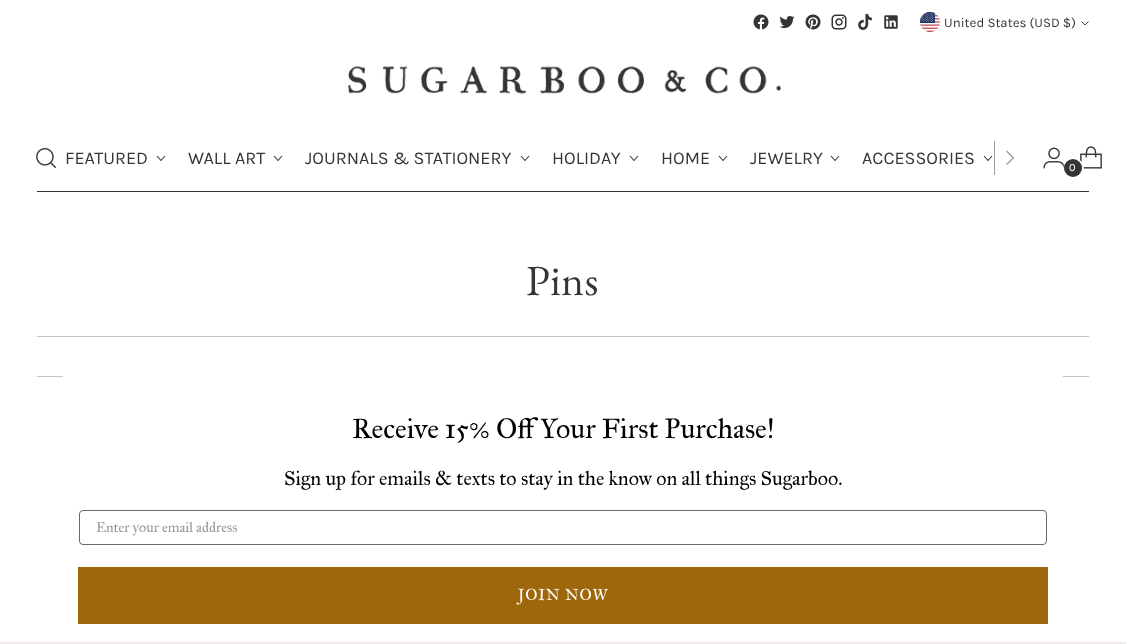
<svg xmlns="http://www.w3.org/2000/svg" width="1126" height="644">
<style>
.a{font:13.25px Karla;fill:#353534}
.b{font:18px Karla;fill:#353534}
.c{font:11px Karla;fill:#fff}
.d{font:43px EB Garamond;letter-spacing:0.5px;fill:#353534}
.e{font:28px IM FELL Great Primer;fill:#000}
.f{font:20px IM FELL Great Primer;fill:#000}
.g{font:14px IM FELL Great Primer;fill:#949596}
.h{font:16px IM FELL Great Primer SC;letter-spacing:1px;fill:#fff}
</style>
<rect width="100%" height="100%" fill="#fff"/>
<path fill="#353534" d="M37 191h1052v1H37z"/>
<image href="1.png" x="753" y="14" width="16" height="16"/>
<image href="2.png" x="779" y="15" width="16" height="14"/>
<image href="3.png" x="805" y="14" width="16" height="16"/>
<image href="4.png" x="831" y="14" width="16" height="16"/>
<image href="5.png" x="858" y="14" width="14" height="16"/>
<image href="6.png" x="884" y="15" width="14" height="14"/>
<image href="7.png" x="920" y="12" width="20" height="20"/>
<path fill="none" stroke="#353534" stroke-width="0.9" d="M1081.5 21.5l3.5 3.5l3.5-3.5"/>
<image href="8.png" x="348" y="66" width="433" height="28"/>
<image href="9.png" x="36" y="148" width="21" height="21"/>
<path fill="none" stroke="#353534" stroke-width="1.1" d="M157 156l4 4.5l4-4.5"/>
<path fill="none" stroke="#353534" stroke-width="1.1" d="M274 156l4 4.5l4-4.5"/>
<path fill="none" stroke="#353534" stroke-width="1.1" d="M521 156l4 4.5l4-4.5"/>
<path fill="none" stroke="#353534" stroke-width="1.1" d="M630 156l4 4.5l4-4.5"/>
<path fill="none" stroke="#353534" stroke-width="1.1" d="M719 156l4 4.5l4-4.5"/>
<path fill="none" stroke="#353534" stroke-width="1.1" d="M831 156l4 4.5l4-4.5"/>
<path fill="none" stroke="#353534" stroke-width="1.1" d="M984 156l4 4.5l4-4.5"/>
<path fill="#9a9a9a" d="M994 141h1v34H994z"/>
<path fill="none" stroke="#9a9a9a" stroke-width="1.3" d="M1006.5 164.5l7-6.5l-7-7"/>
<image href="10.png" x="1043" y="147" width="21" height="22"/>
<image href="11.png" x="1080" y="146" width="22" height="23"/>
<circle fill="none" stroke="#fff" stroke-width="2" cx="1073.5" cy="168.5" r="9.5"/>
<circle fill="#353534" cx="1073" cy="168" r="9"/>
<path fill="#c9c5be" d="M37 336h1052v1H37z"/>
<path fill="#c9c5be" d="M37 376h1052v1H37z"/>
<path fill="#fff" d="M63 376h1000v1H63z"/>
<rect fill="none" stroke="#606a72" x="79.5" y="510.5" width="967" height="34" rx="3.5"/>
<path fill="#9f670c" d="M78 567h970v57H78z"/>
<path fill="#efeae9" d="M0 642h1126v2H0z"/>
<text class="a" x="944" y="27">United States (USD $)</text>
<text class="b" x="65" y="164">FEATURED</text>
<text class="b" x="188" y="164">WALL ART</text>
<text class="b" x="305" y="164">JOURNALS &amp; STATIONERY</text>
<text class="b" x="552" y="164">HOLIDAY</text>
<text class="b" x="661" y="164">HOME</text>
<text class="b" x="750" y="164">JEWELRY</text>
<text class="b" x="862" y="164">ACCESSORIES</text>
<text class="c" x="1069" y="171">0</text>
<text class="d" x="526" y="295">Pins</text>
<text class="e" x="352" y="438">Receive 15% Off Your First Purchase!</text>
<text class="f" x="284" y="485">Sign up for emails &amp; texts to stay in the know on all things Sugarboo.</text>
<text class="g" x="96" y="532">Enter your email address</text>
<text class="h" x="518" y="600">JOIN NOW</text>
</svg>
